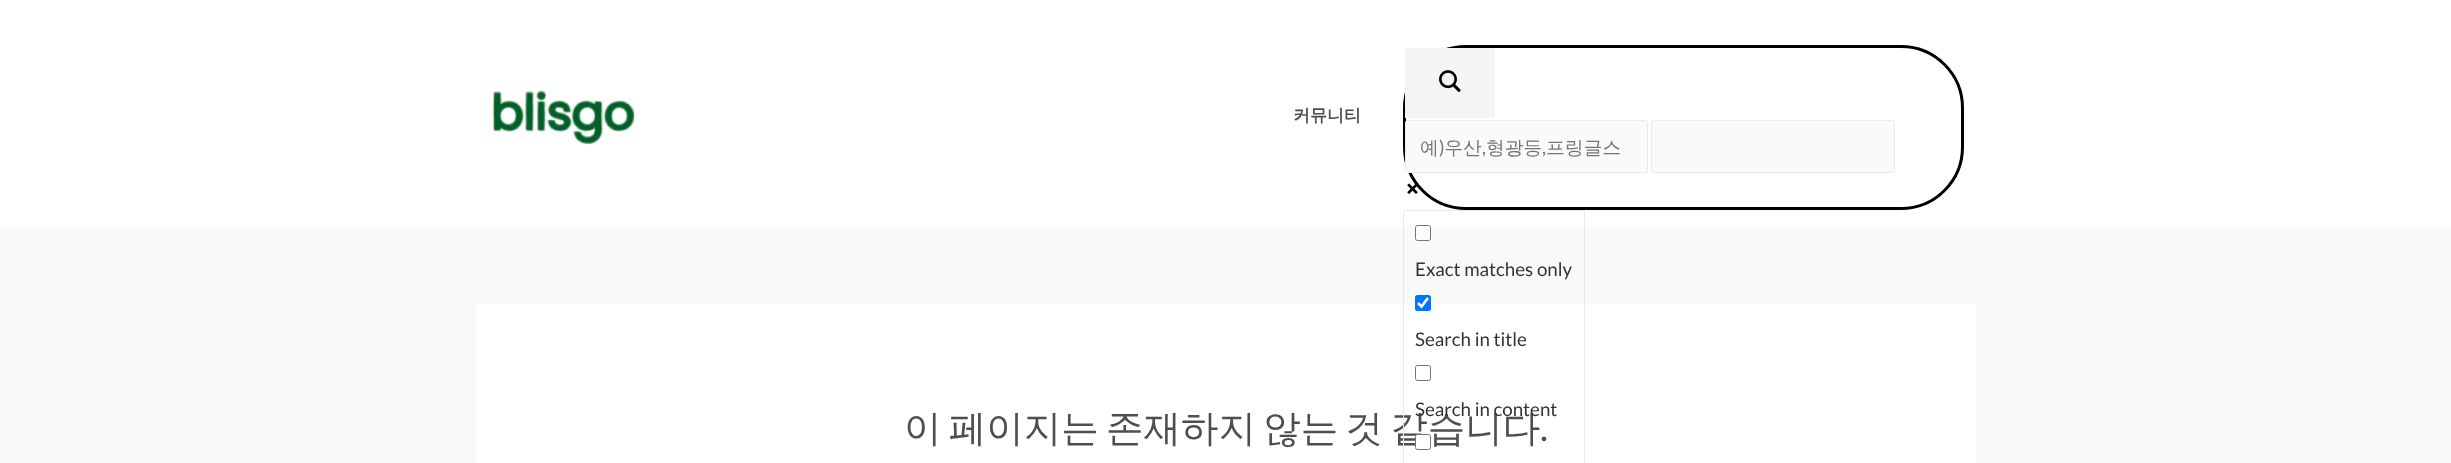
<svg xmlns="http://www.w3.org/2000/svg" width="2451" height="463">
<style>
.a{font:bold 17px WenQuanYi Zen Hei;fill:#4e4e4e}
.b{font:500 18.75px WenQuanYi Zen Hei;fill:#757575}
.c{font:18.75px Lato;fill:#757575}
.d{font:500 37.5px WenQuanYi Zen Hei;fill:#4e4e4e}
.e{font:18.75px Lato;fill:#333}
.f{font:37.5px Lato;fill:#4e4e4e}
</style>
<rect width="100%" height="100%" fill="#f9f9f9"/>
<path fill="#fff" d="M0 0h2451v229H0z"/>
<image href="1.png" x="492" y="90" width="143" height="54"/>
<rect fill="none" stroke="#000" stroke-width="3" x="1404.5" y="46.5" width="558" height="162" rx="61.5"/>
<path fill="#f4f4f4" d="M1405 48h90v70H1405z"/>
<image href="2.png" x="1439" y="70" width="22" height="23"/>
<rect fill="#fafafa" stroke="#eaeaea" x="1405.5" y="120.5" width="242" height="52" rx="2"/>
<rect fill="#fafafa" stroke="#eaeaea" x="1651.5" y="120.5" width="243" height="52" rx="2"/>
<image href="3.png" x="1407" y="183" width="11" height="11"/>
<path fill="#fff" d="M476 304h1500v159H476z"/>
<text class="a" x="1293" y="121">커뮤니티</text>
<text class="b" x="1420" y="154">예 우산</text>
<text class="c" x="1439" y="154">)</text>
<text class="c" x="1482" y="154">,</text>
<text class="b" x="1486" y="154">형광등</text>
<text class="c" x="1542" y="154">,</text>
<text class="b" x="1546" y="154">프링글스</text>
<text class="d" x="904" y="441" word-spacing="-4">이 페이지는 존재하지 않는 것 같습니다</text>
<path fill="none" stroke="#eaeaea" d="M1403.5 210.5h181v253H1403.5z"/>
<rect fill="#fff" stroke="#767676" x="1415.5" y="434.5" width="15" height="15" rx="2"/>
<text class="e" x="1415" y="416">Search in content</text>
<rect fill="none" stroke="#767676" x="1415.5" y="365.5" width="15" height="15" rx="2"/>
<text class="e" x="1415" y="346">Search in title</text>
<rect fill="#0075ff" x="1415" y="295" width="16" height="16" rx="2.5"/>
<path fill="none" stroke="#fff" stroke-width="2.6" d="M1418 303l3.5 3.5l6.5-8.5"/>
<text class="e" x="1415" y="276">Exact matches only</text>
<rect fill="#fff" stroke="#767676" x="1415.5" y="225.5" width="15" height="15" rx="2"/>
<text class="f" x="1540" y="441">.</text>
</svg>
